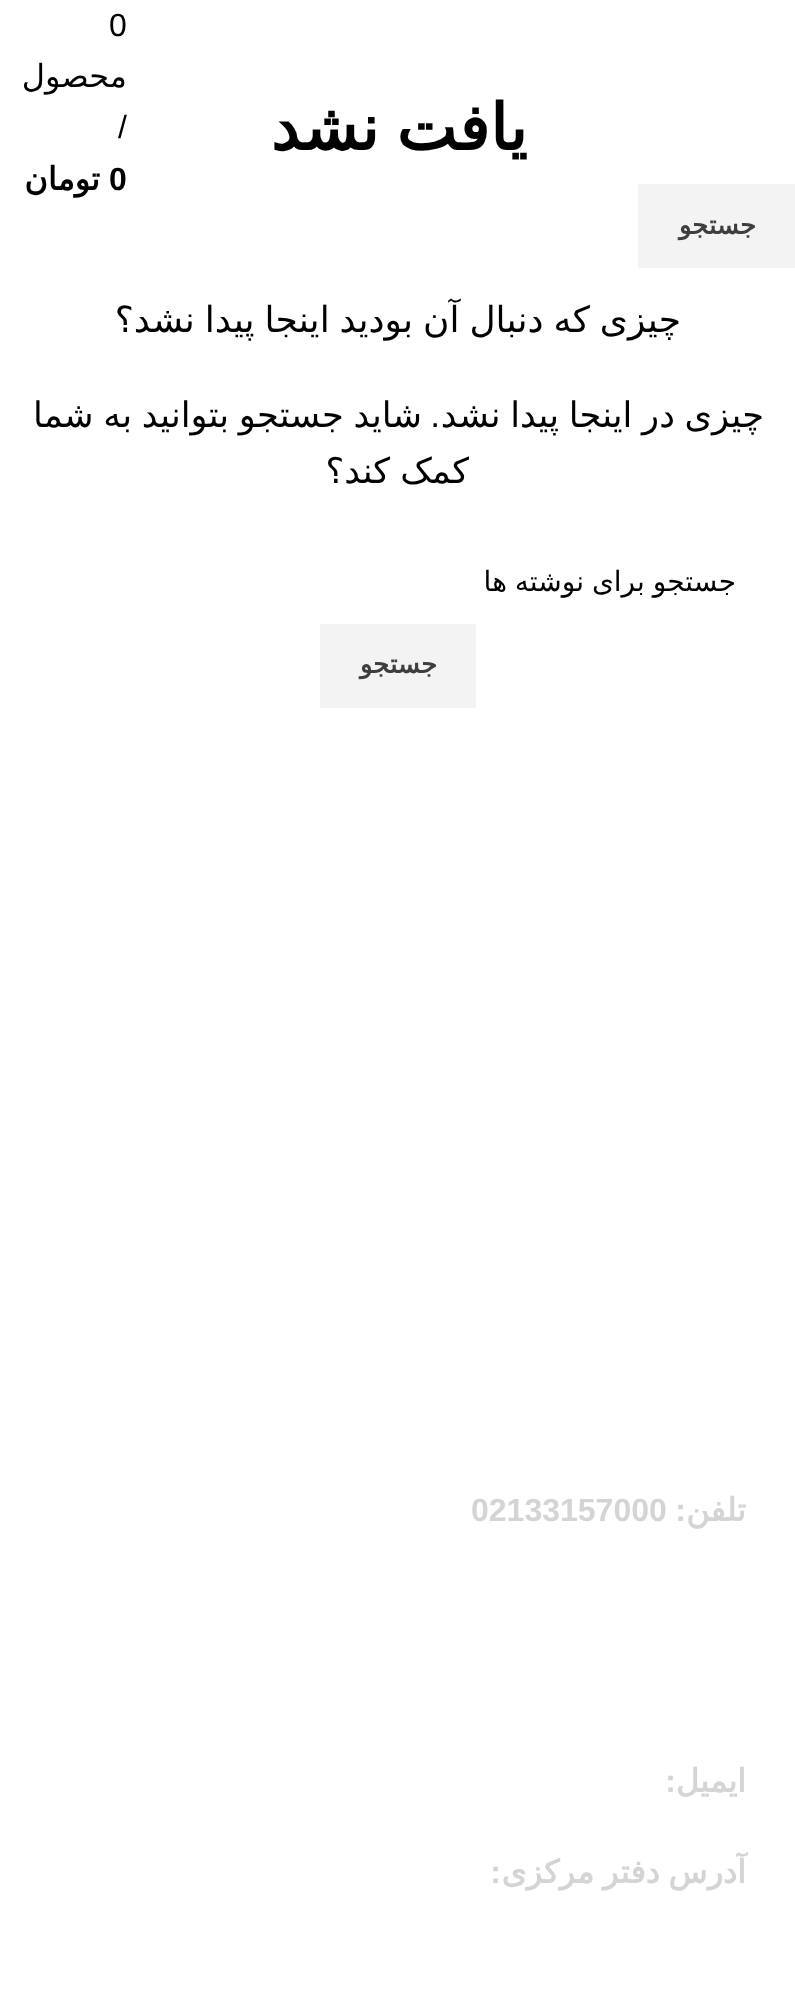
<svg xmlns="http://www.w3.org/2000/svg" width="795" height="1994">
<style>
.a{font:32px Liberation Sans;fill:#000}
.b{font:32px DejaVu Sans;direction:rtl;fill:#000}
.c{font:bold 32px Liberation Sans;fill:#000}
.d{font:bold 32px DejaVu Sans;direction:rtl;fill:#000}
.e{font:bold 64px DejaVu Sans;direction:rtl;fill:#000}
.f{font:36px DejaVu Sans;direction:rtl;fill:#000}
.g{font:35.25px DejaVu Sans;direction:rtl;fill:#000}
.h{font:35.25px Liberation Sans;direction:rtl;fill:#000}
.i{font:28px DejaVu Sans;direction:rtl;fill:#000}
.j{font:bold 26px DejaVu Sans;direction:rtl;fill:#3e3e3e}
.k{font:bold 32px DejaVu Sans;direction:rtl;fill:#d4d4d4}
.l{font:bold 32px Liberation Sans;direction:rtl;fill:#d4d4d4}
.m{font:bold 32px Liberation Sans;fill:#d4d4d4}
</style>
<rect width="100%" height="100%" fill="#fff"/>
<path fill="#f3f3f3" d="M320 624h156v84H320z"/>
<path fill="#f3f3f3" d="M638 184h157v84H638z"/>
<text class="a" x="109" y="36">0</text>
<text class="b" x="127" y="87">محصول</text>
<text class="a" x="118" y="138">/</text>
<text class="c" x="109" y="190">0</text>
<text class="d" x="100" y="190">تومان</text>
<text class="e" x="527" y="150" word-spacing="-3">یافت نشد</text>
<text class="f" x="681" y="332" word-spacing="-1.5">چیزی که دنبال آن بودید اینجا پیدا نشد؟</text>
<text class="g" x="764" y="427" word-spacing="-1.5">چیزی در اینجا پیدا نشد</text>
<text class="h" x="440" y="427">.</text>
<text class="g" x="422" y="427" word-spacing="-1.5">شاید جستجو بتوانید به شما</text>
<text class="g" x="469" y="483" word-spacing="-1">کمک کند؟</text>
<text class="i" x="736" y="591" word-spacing="-1">جستجو برای نوشته ها</text>
<text class="j" x="437" y="673">جستجو</text>
<text class="k" x="746" y="1521">تلفن</text>
<text class="l" x="686" y="1521">:</text>
<text class="m" x="471" y="1521">02133157000</text>
<text class="k" x="746" y="1792">ایمیل</text>
<text class="l" x="676" y="1792">:</text>
<text class="k" x="746" y="1883" word-spacing="-1.5">آدرس دفتر مرکزی</text>
<text class="l" x="501" y="1883">:</text>
<text class="j" x="756" y="234">جستجو</text>
</svg>
